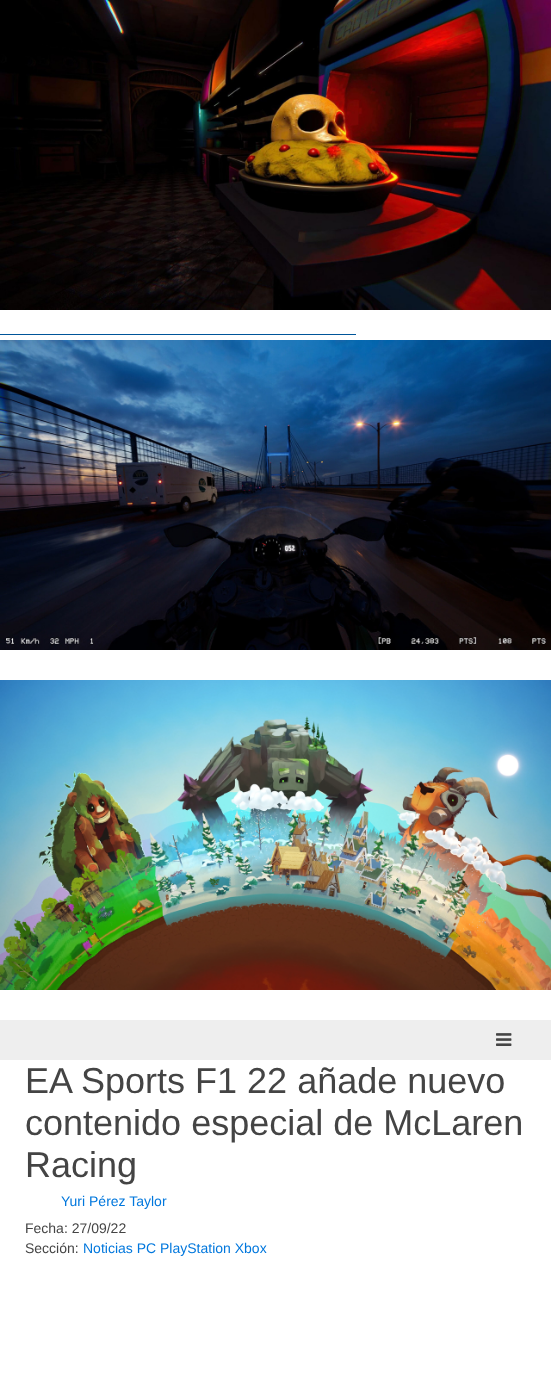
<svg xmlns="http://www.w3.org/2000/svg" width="551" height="1388">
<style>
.a{font:36px Liberation Sans;fill:#444}
.b{font:14px Liberation Sans;fill:#07d}
.c{font:14px Liberation Sans;fill:#444}
</style>
<rect width="100%" height="100%" fill="#fff"/>
<image href="1.png" x="0" y="0" width="551" height="310"/>
<path fill="#059" d="M0 334h356v1H0z"/>
<image href="2.png" x="0" y="340" width="551" height="310"/>
<image href="3.png" x="0" y="680" width="551" height="310"/>
<path fill="#eee" d="M0 1020h551v40H0z"/>
<image href="4.png" x="496" y="1033" width="16" height="13"/>
<text class="a" x="25" y="1093">EA Sports F1 22 añade nuevo</text>
<text class="a" x="25" y="1135">contenido especial de McLaren</text>
<text class="a" x="25" y="1177">Racing</text>
<text class="b" x="61" y="1206">Yuri Pérez Taylor</text>
<text class="c" x="25" y="1233">Fecha: 27/09/22</text>
<text class="c" x="25" y="1253">Sección:</text>
<text class="b" x="83" y="1253">Noticias PC PlayStation Xbox</text>
</svg>
